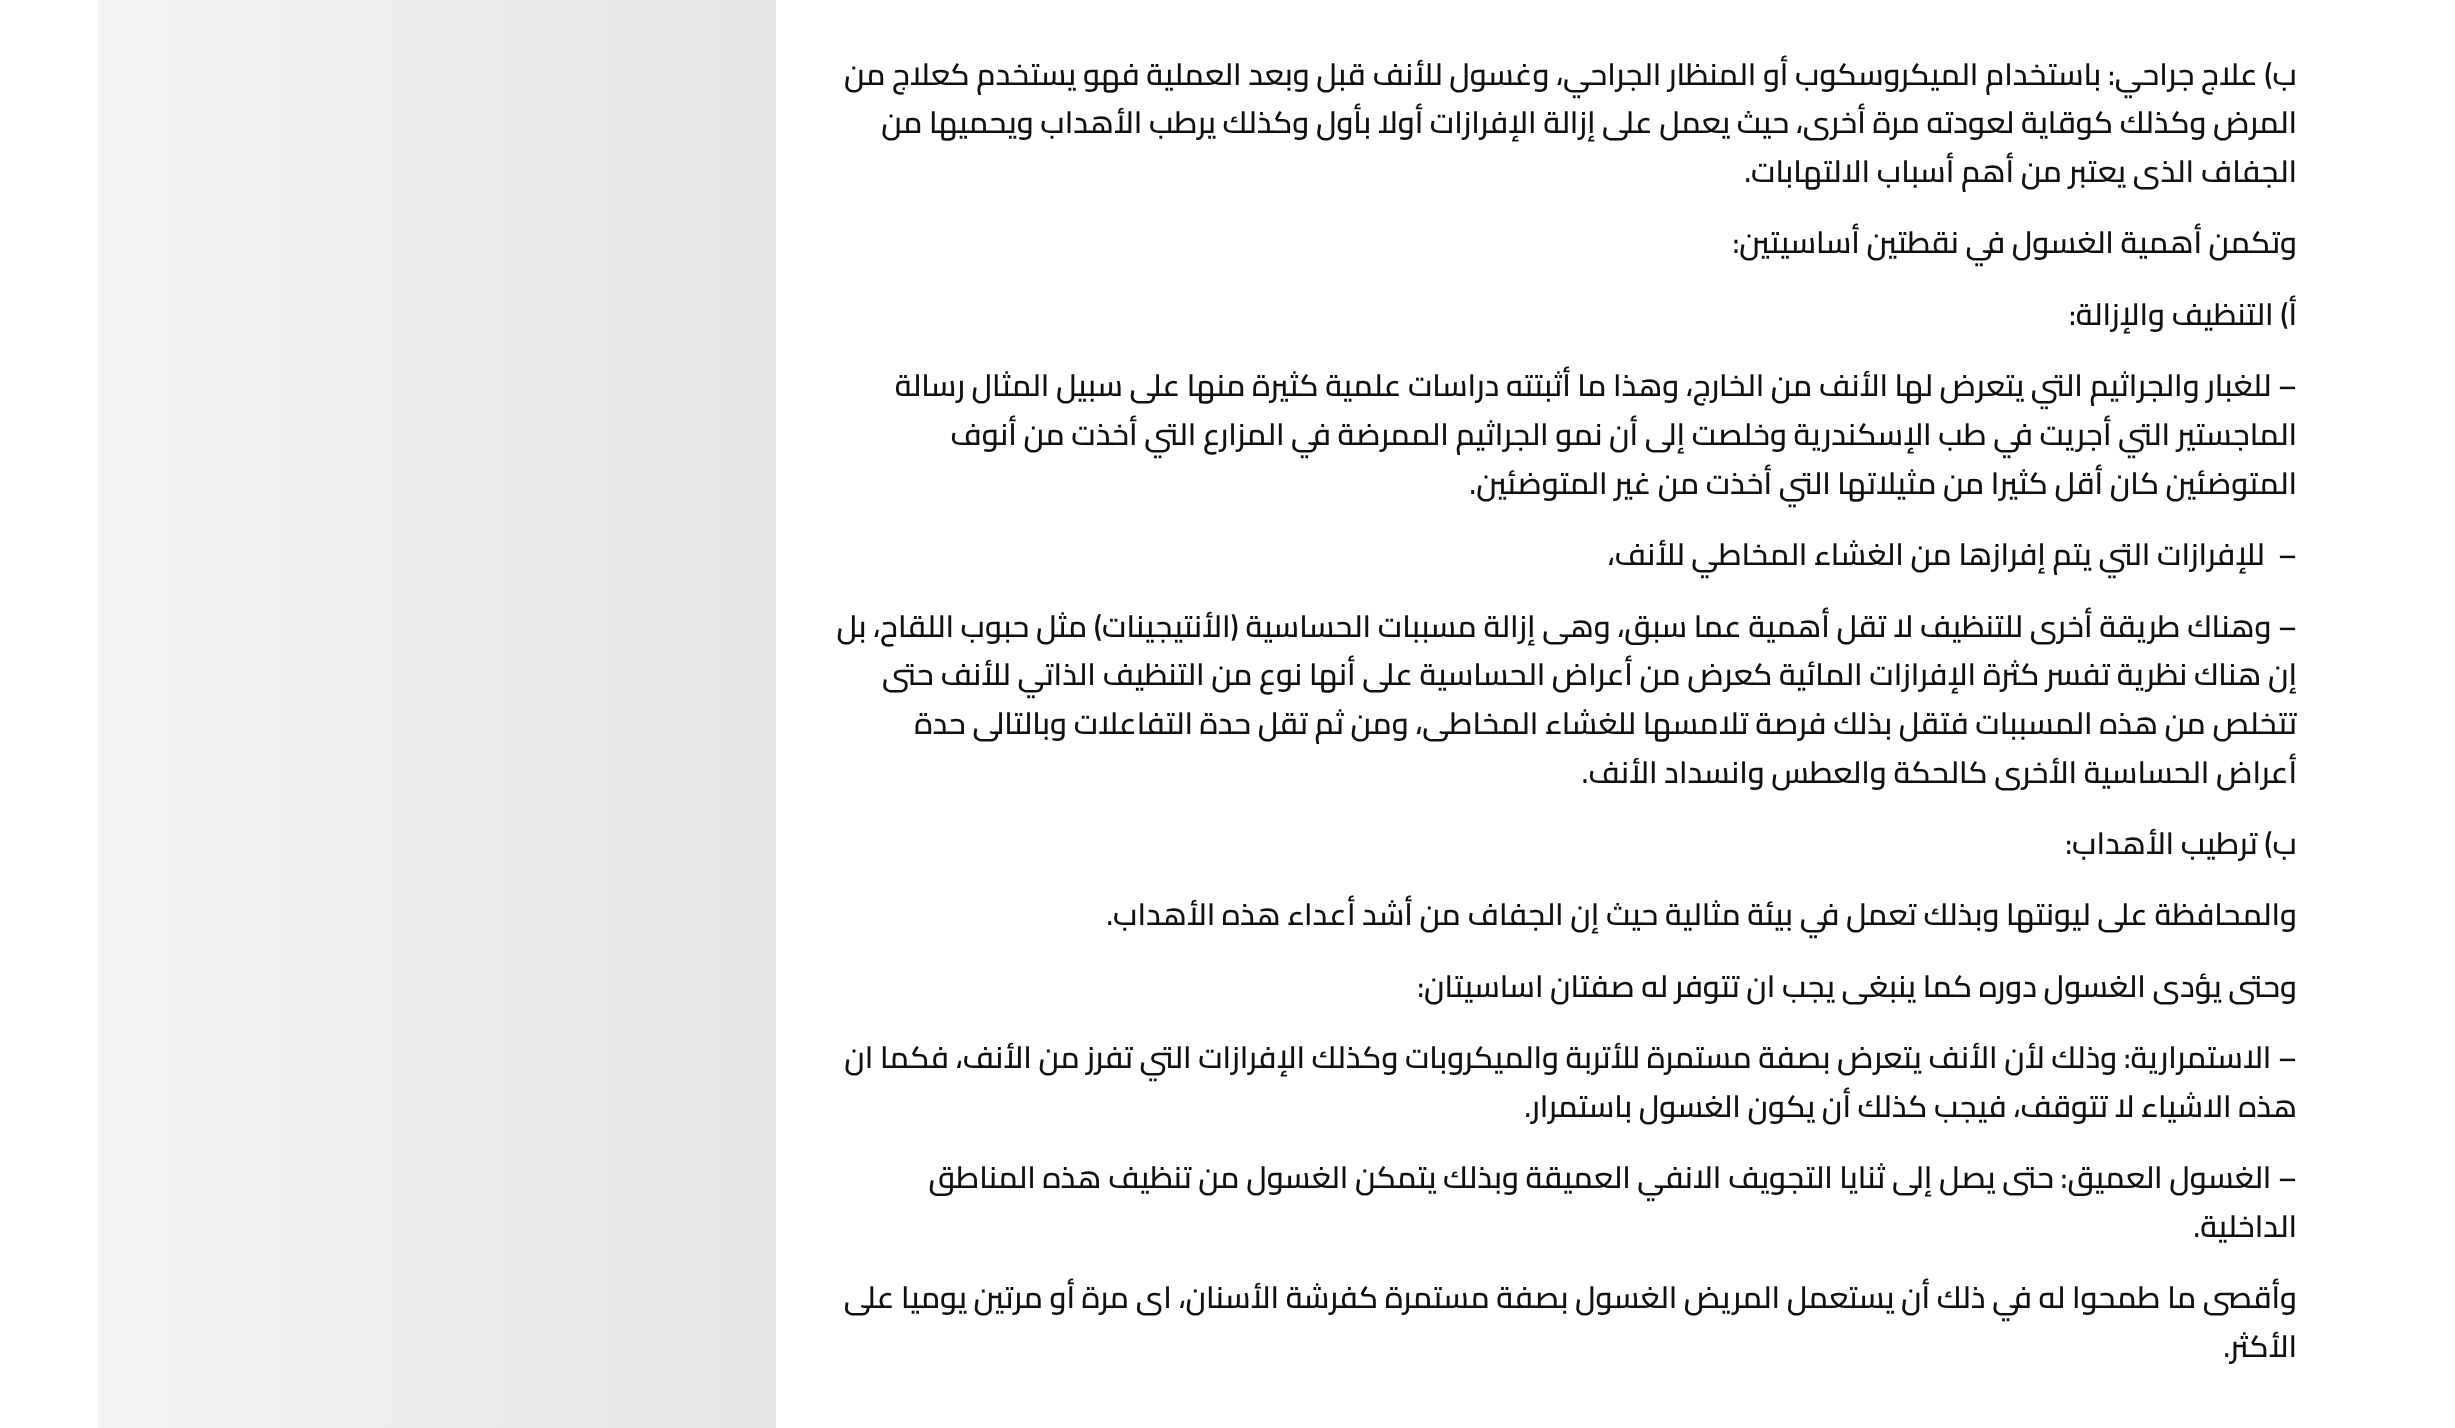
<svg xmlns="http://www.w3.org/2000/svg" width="2455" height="1428">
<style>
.a{font:600 30.4px Cairo;direction:rtl;fill:#111}
</style>
<defs>
<linearGradient id="g1" gradientUnits="userSpaceOnUse" x1="98" y1="-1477" x2="776" y2="-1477"><stop offset="0" stop-color="#f3f3f3"/><stop offset="1" stop-color="#e6e6e6"/></linearGradient>
</defs>
<rect width="100%" height="100%" fill="#fff"/>
<path fill="url(#g1)" d="M98 0h678v1428H98z"/>
<text class="a" x="2297" y="85">ب) علاج جراحي: باستخدام الميكروسكوب أو المنظار الجراحي، وغسول للأنف قبل وبعد العملية فهو يستخدم كعلاج من</text>
<text class="a" x="2297" y="133">المرض وكذلك كوقاية لعودته مرة أخرى، حيث يعمل على إزالة الإفرازات أولا بأول وكذلك يرطب الأهداب ويحميها من</text>
<text class="a" x="2297" y="182">الجفاف الذى يعتبر من أهم أسباب الالتهابات.</text>
<text class="a" x="2297" y="253">وتكمن أهمية الغسول في نقطتين أساسيتين:</text>
<text class="a" x="2297" y="325">أ) التنظيف والإزالة:</text>
<text class="a" x="2297" y="396">– للغبار والجراثيم التي يتعرض لها الأنف من الخارج، وهذا ما أثبتته دراسات علمية كثيرة منها على سبيل المثال رسالة</text>
<text class="a" x="2297" y="445">الماجستير التي أجريت في طب الإسكندرية وخلصت إلى أن نمو الجراثيم الممرضة في المزارع التي أخذت من أنوف</text>
<text class="a" x="2297" y="494">المتوضئين كان أقل كثيرا من مثيلاتها التي أخذت من غير المتوضئين.</text>
<text class="a" xml:space="preserve" x="2297" y="565">–  للإفرازات التي يتم إفرازها من الغشاء المخاطي للأنف،</text>
<text class="a" x="2297" y="637">– وهناك طريقة أخرى للتنظيف لا تقل أهمية عما سبق، وهى إزالة مسببات الحساسية (الأنتيجينات) مثل حبوب اللقاح، بل</text>
<text class="a" x="2297" y="685">إن هناك نظرية تفسر كثرة الإفرازات المائية كعرض من أعراض الحساسية على أنها نوع من التنظيف الذاتي للأنف حتى</text>
<text class="a" x="2297" y="734">تتخلص من هذه المسببات فتقل بذلك فرصة تلامسها للغشاء المخاطى، ومن ثم تقل حدة التفاعلات وبالتالى حدة</text>
<text class="a" x="2297" y="783">أعراض الحساسية الأخرى كالحكة والعطس وانسداد الأنف.</text>
<text class="a" x="2297" y="854">ب) ترطيب الأهداب:</text>
<text class="a" x="2297" y="925">والمحافظة على ليونتها وبذلك تعمل في بيئة مثالية حيث إن الجفاف من أشد أعداء هذه الأهداب.</text>
<text class="a" x="2297" y="997">وحتى يؤدى الغسول دوره كما ينبغى يجب ان تتوفر له صفتان اساسيتان:</text>
<text class="a" x="2297" y="1068">– الاستمرارية: وذلك لأن الأنف يتعرض بصفة مستمرة للأتربة والميكروبات وكذلك الإفرازات التي تفرز من الأنف، فكما ان</text>
<text class="a" x="2297" y="1117">هذه الاشياء لا تتوقف، فيجب كذلك أن يكون الغسول باستمرار.</text>
<text class="a" x="2297" y="1188">– الغسول العميق: حتى يصل إلى ثنايا التجويف الانفي العميقة وبذلك يتمكن الغسول من تنظيف هذه المناطق</text>
<text class="a" x="2297" y="1237">الداخلية.</text>
<text class="a" x="2297" y="1308">وأقصى ما طمحوا له في ذلك أن يستعمل المريض الغسول بصفة مستمرة كفرشة الأسنان، اى مرة أو مرتين يوميا على</text>
<text class="a" x="2297" y="1357">الأكثر.</text>
</svg>
